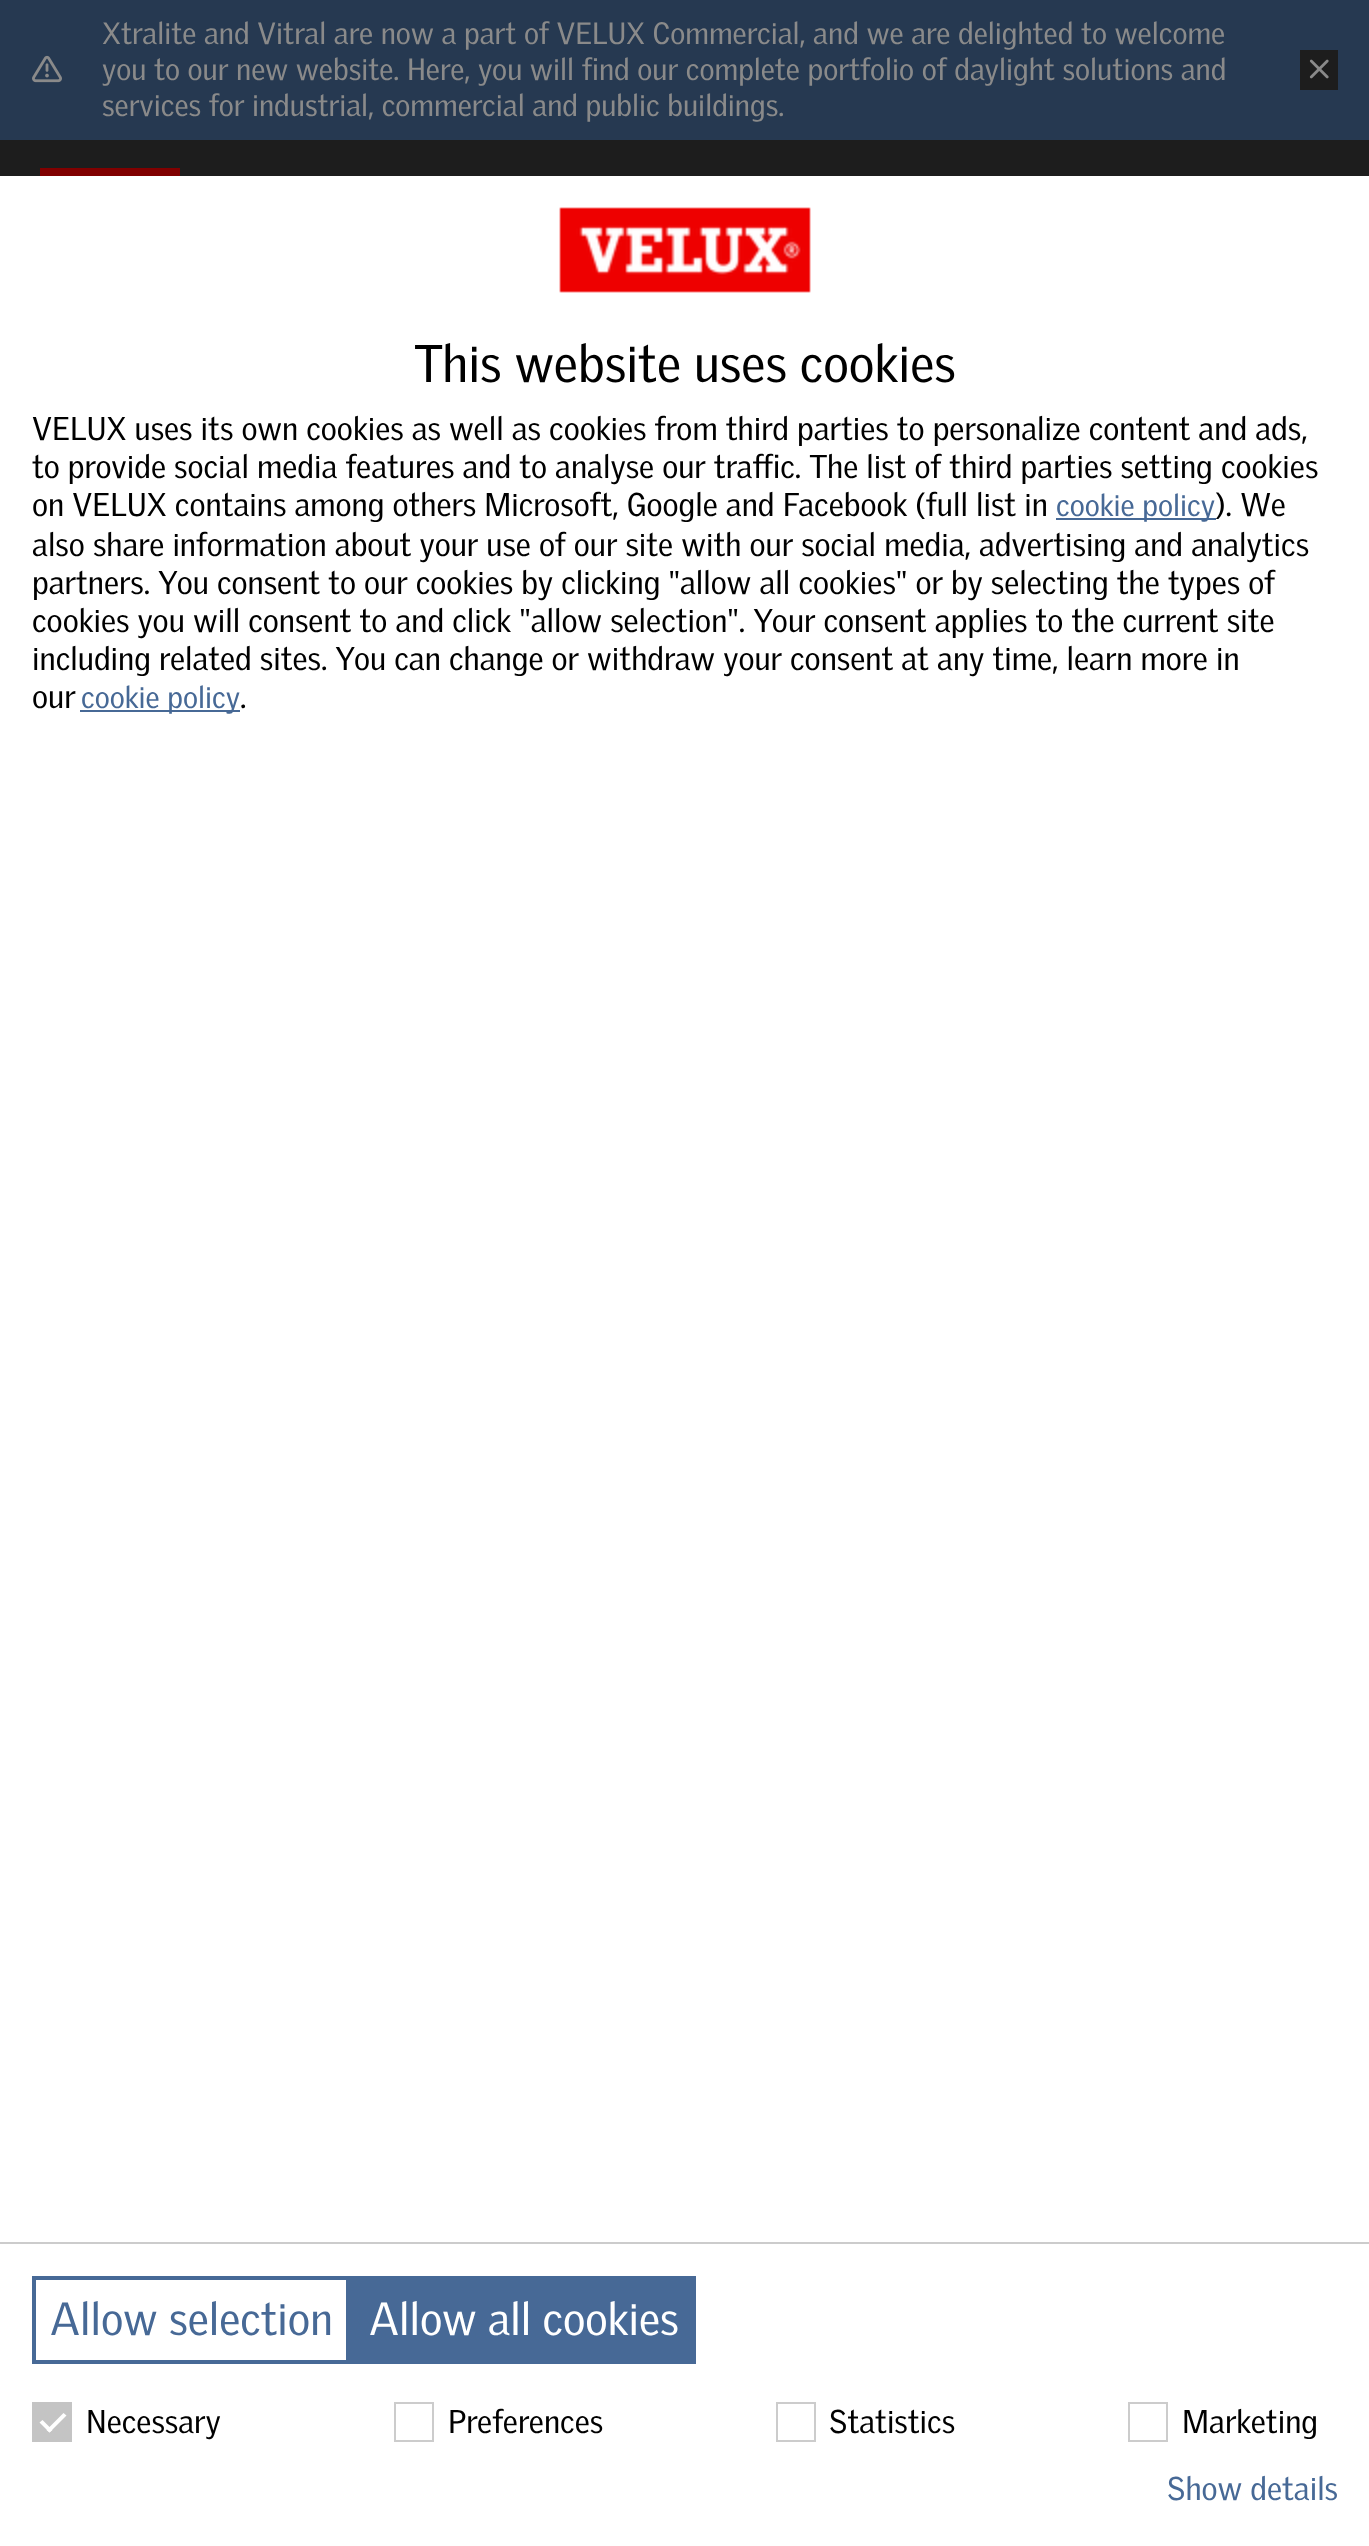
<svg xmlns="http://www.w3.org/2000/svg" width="1369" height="2546">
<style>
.a{font:30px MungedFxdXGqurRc;fill:#8a8a8a}
.b{font:51.25px MungedFxdXGqurRc;fill:#000}
.c{font:32px MungedFxdXGqurRc;fill:#000}
.d{font:30px MungedFxdXGqurRc;fill:#476996}
.e{font:44.75px MungedFxdXGqurRc;fill:#476996}
.f{font:44.75px MungedFxdXGqurRc;fill:#fff}
.g{font:32px MungedFxdXGqurRc;fill:#476996}
</style>
<rect width="100%" height="100%" fill="#263951"/>
<image href="1.png" x="32" y="55" width="30" height="28"/>
<path fill="#1d1d1d" d="M1300 50h38v40H1300z"/>
<image href="2.png" x="1309" y="59" width="20" height="20"/>
<path fill="#1d1d1d" d="M0 140h1369v36H0z"/>
<image href="3.png" x="40" y="168" width="140" height="8"/>
<path fill="#fff" d="M0 176h1369v2370H0z"/>
<image href="4.png" x="559" y="207" width="252" height="86"/>
<path fill="#476996" d="M1056 518h160v2H1056z"/>
<path fill="#476996" d="M80 710h160v2H80z"/>
<path fill="#ccc" d="M0 2242h1369v2H0z"/>
<path fill="none" stroke="#476996" stroke-width="4" d="M34 2278h314v84H34z"/>
<path fill="#476996" d="M350 2276h346v88H350z"/>
<path fill="#c4c4c4" d="M32 2402h40v40H32z"/>
<path fill="#fff" d="M63.5 2413l3 2.5l-17 17l-3-2.5z"/>
<path fill="#fff" d="M42.5 2420l10 10l-3 2.5l-10-10z"/>
<path fill="none" stroke="#ccc" stroke-width="2" d="M395 2403h38v38H395z"/>
<path fill="none" stroke="#ccc" stroke-width="2" d="M777 2403h38v38H777z"/>
<path fill="none" stroke="#ccc" stroke-width="2" d="M1129 2403h38v38H1129z"/>
<text class="a" x="102" y="44">Xtralite and Vitral are now a part of VELUX Commercial, and we are delighted to welcome</text>
<text class="a" x="102" y="80">you to our new website. Here, you will find our complete portfolio of daylight solutions and</text>
<text class="a" x="102" y="116">services for industrial, commercial and public buildings.</text>
<text class="b" x="414" y="382">This website uses cookies</text>
<text class="c" x="32" y="440">VELUX uses its own cookies as well as cookies from third parties to personalize content and ads,</text>
<text class="c" x="32" y="478">to provide social media features and to analyse our traffic. The list of third parties setting cookies</text>
<text class="c" x="32" y="516">on VELUX contains among others Microsoft, Google and Facebook (full list in</text>
<text class="d" x="1056" y="516">cookie policy</text>
<text class="c" x="1215" y="516">). We</text>
<text class="c" x="32" y="556">also share information about your use of our site with our social media, advertising and analytics</text>
<text class="c" x="32" y="594">partners. You consent to our cookies by clicking "allow all cookies" or by selecting the types of</text>
<text class="c" x="32" y="632">cookies you will consent to and click "allow selection". Your consent applies to the current site</text>
<text class="c" x="32" y="670">including related sites. You can change or withdraw your consent at any time, learn more in</text>
<text class="c" x="32" y="708">our</text>
<text class="d" x="81" y="708">cookie policy</text>
<text class="c" x="240" y="708">.</text>
<text class="e" x="50" y="2335">Allow selection</text>
<text class="f" x="369" y="2335">Allow all cookies</text>
<text class="c" x="86" y="2433">Necessary</text>
<text class="c" x="448" y="2433">Preferences</text>
<text class="c" x="829" y="2433">Statistics</text>
<text class="c" x="1182" y="2433">Marketing</text>
<text class="g" x="1167" y="2500">Show details</text>
</svg>
